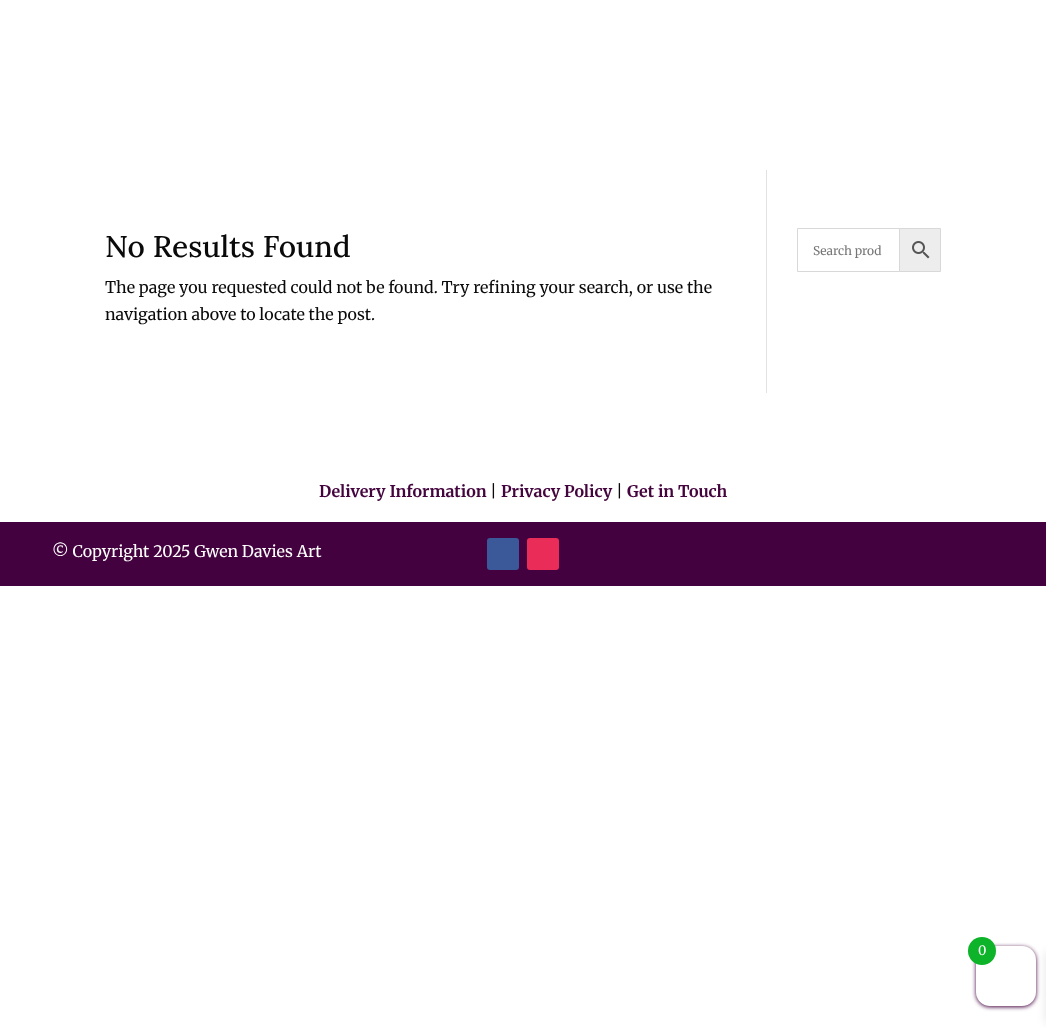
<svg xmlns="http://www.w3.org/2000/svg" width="1046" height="1028">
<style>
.a{font:500 30px Lora;fill:#0a0a0a}
.b{font:300 16px Merriweather;fill:#0a0a0a}
.c{font:300 12px Merriweather;fill:#757575}
.d{font:300 16px 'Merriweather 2';fill:#44053e}
.e{font:300 16px Merriweather;fill:#fff}
.f{font:300 13px Merriweather;fill:#fff}
</style>
<rect width="100%" height="100%" fill="#fff"/>
<path fill="#e2e2e2" d="M766 170h1v223H766z"/>
<path fill="#ededed" stroke="#d8d8d8" d="M899.5 228.5h41v43H899.5z"/>
<path fill="none" stroke="#d8d8d8" d="M797.5 228.5h102v43H797.5z"/>
<image href="1.png" x="912" y="241" width="18" height="18"/>
<path fill="#44013f" d="M0 522h1046v64H0z"/>
<rect fill="#3b5998" x="487" y="538" width="32" height="32" rx="3"/>
<rect fill="#ea2c59" x="527" y="538" width="32" height="32" rx="3"/>
<rect fill="#44013f" filter="blur(2px)" x="976" y="947" width="60" height="60" rx="14"/>
<path fill="#0000001a" filter="blur(5px)" d="M1046 952h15v71H1046z"/>
<rect fill="#fff" x="976" y="946" width="60" height="60" rx="14"/>
<circle fill="#0db329" cx="982" cy="951" r="14"/>
<text class="a" x="105" y="257">No Results Found</text>
<text class="b" x="105" y="293">The page you requested could not be found. Try refining your search, or use the</text>
<text class="b" x="105" y="320">navigation above to locate the post.</text>
<text class="c" x="813" y="255">Search prod</text>
<text class="d" x="319" y="497">Delivery Information</text>
<text class="b" x="490" y="497">|</text>
<text class="d" x="501" y="497">Privacy Policy</text>
<text class="b" x="616" y="497">|</text>
<text class="d" x="627" y="497">Get in Touch</text>
<text class="e" x="52" y="557">© Copyright 2025 Gwen Davies Art</text>
<text class="f" x="978" y="955">0</text>
</svg>
